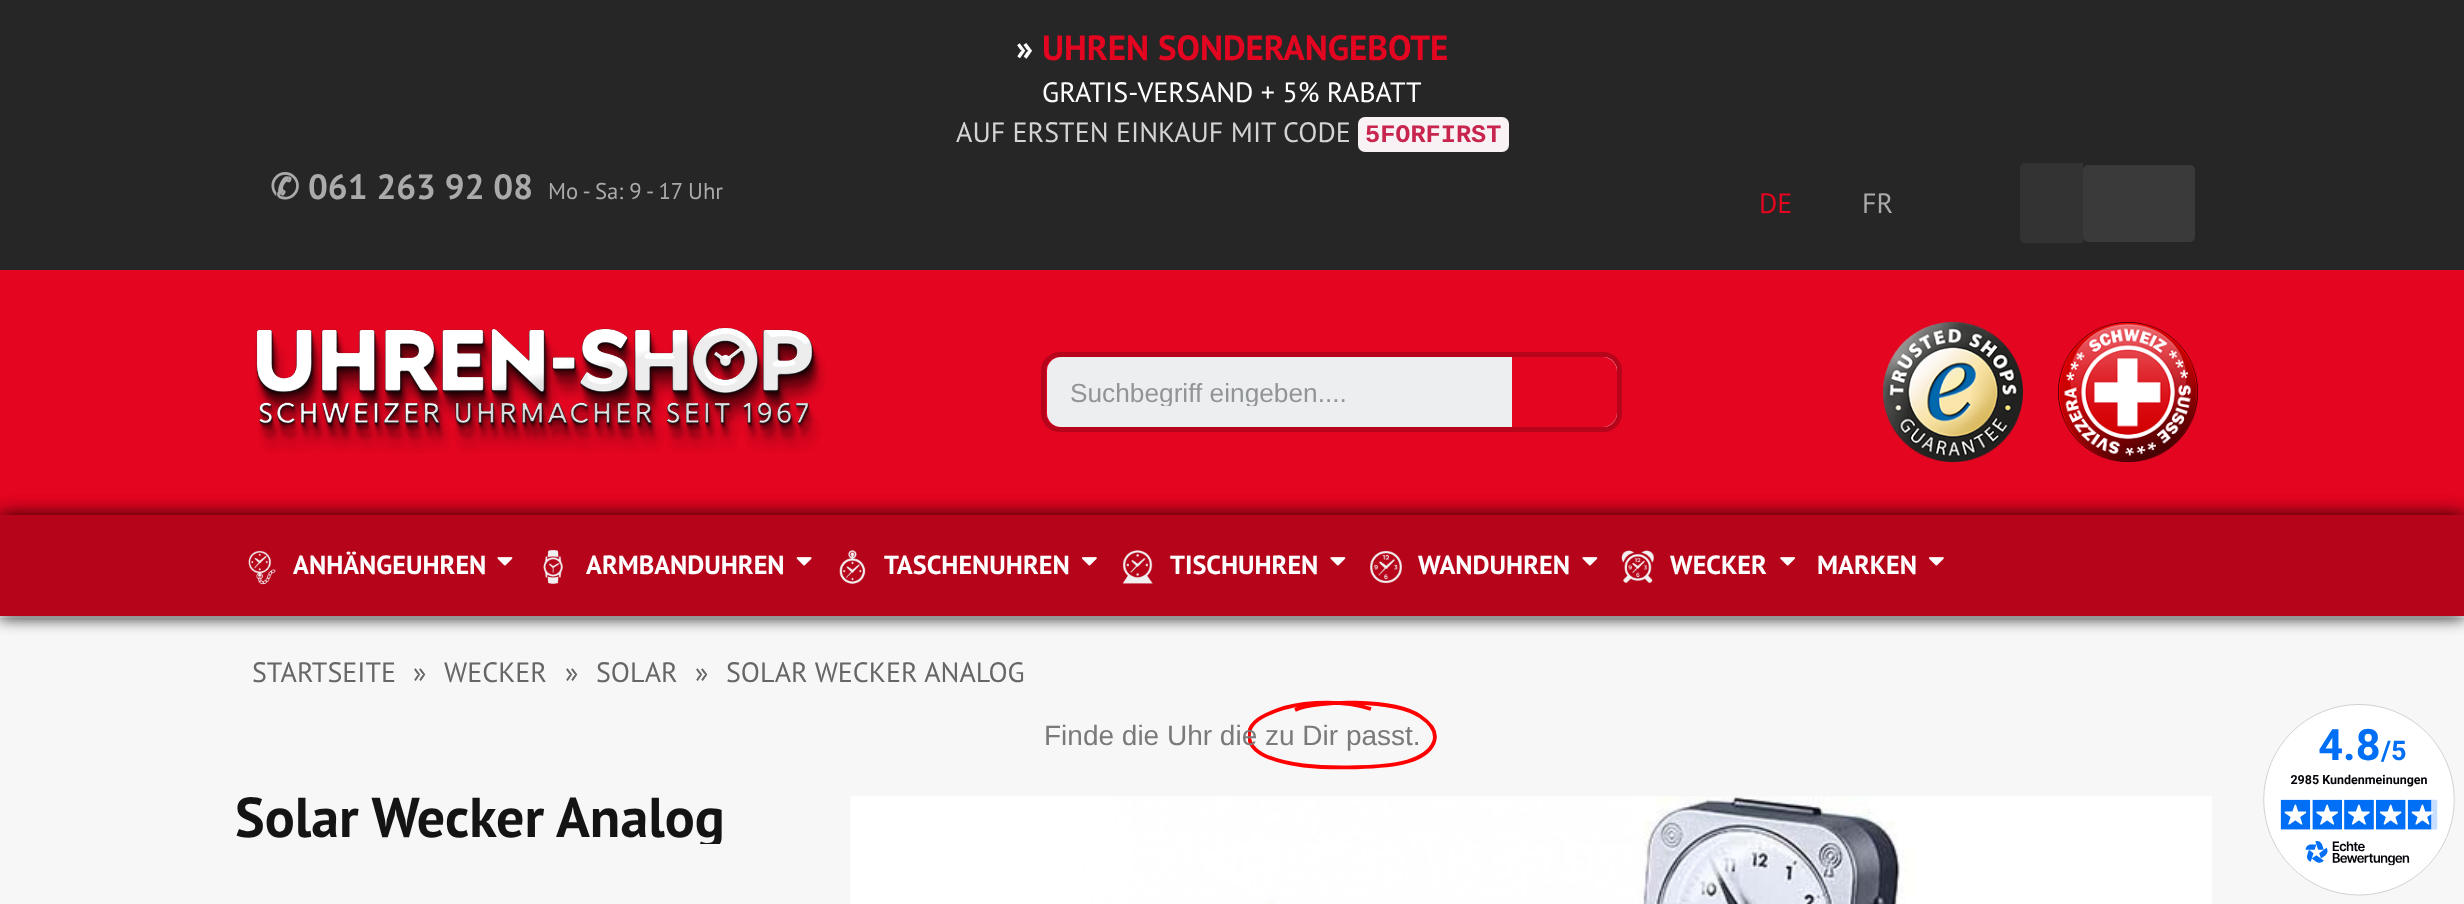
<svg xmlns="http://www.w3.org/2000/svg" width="2464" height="904">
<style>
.a{font:bold 35px PT Sans;fill:#fff}
.b{font:bold 35px PT Sans;fill:#e40520}
.c{font:28px PT Sans;fill:#fff}
.d{font:28px PT Sans;fill:#d4d4d4}
.e{font:bold 25.25px Liberation Mono;fill:#c7254e}
.f{font:bold 35px DejaVu Sans;fill:#aaa}
.g{font:bold 35px PT Sans;fill:#aaa}
.h{font:22.75px PT Sans;fill:#aaa}
.i{font:28px PT Sans;fill:#e40520}
.j{font:28px PT Sans;fill:#aaa}
.k{font:26.25px Liberation Sans;fill:#919597}
.l{font:bold 26.25px PT Sans;fill:#fff}
.m{font:28px PT Sans;fill:#666}
.n{font:28px Liberation Sans;fill:#7a7a7a}
.o{font:bold 56px PT Sans;fill:#141414}
</style>
<defs>
<clipPath id="clip1"><path d="M1248 700h191v70H1248z"/></clipPath>
<clipPath id="clip2"><path d="M1069 376h389v30H1069z"/></clipPath>
</defs>
<rect width="100%" height="100%" fill="#f7f7f7"/>
<path fill="#0000001c" filter="blur(4.5px)" d="M0 4h2464v617H0z"/>
<path fill="#fff" d="M0 616h2464v2H0z"/>
<path fill="#262626" d="M0 0h2464v270H0z"/>
<rect fill="#f9f2f4" x="1358" y="117" width="151" height="35" rx="7"/>
<path fill="#333" d="M2025 163h58v80h-58c-3 0-5-2-5-5v-70c0-3 2-5 5-5z"/>
<rect fill="#3a3a3a" x="2083" y="165" width="112" height="77" rx="5"/>
<path fill="#e40520" d="M0 270h2464v245H0z"/>
<image href="1.png" x="255" y="327" width="571" height="127"/>
<rect fill="none" stroke="#b6041a" stroke-width="5" x="1043.5" y="354.5" width="576" height="75" rx="16.5"/>
<rect fill="#eceeef" x="1047" y="357" width="570" height="70" rx="14"/>
<path fill="#e40520" d="M1512 357h91c7.5 0 14 6.5 14 14v42c0 7.5-6.5 14-14 14h-91z"/>
<image href="2.png" x="1883" y="322" width="140" height="140"/>
<image href="3.png" x="2058" y="322" width="140" height="140"/>
<path fill="#00000080" filter="blur(9px)" d="M0 515h2464v101H0z"/>
<path fill="#00000080" filter="blur(9px)" d="M0 515h2464v101H0z"/>
<path fill="#b6041a" d="M0 515h2464v101H0z"/>
<image href="4.png" x="248" y="550" width="28" height="35"/>
<image href="5.png" x="497" y="557" width="16" height="9"/>
<image href="6.png" x="543" y="549" width="20" height="35"/>
<image href="7.png" x="796" y="557" width="16" height="9"/>
<image href="8.png" x="839" y="550" width="27" height="34"/>
<image href="9.png" x="1081" y="557" width="16" height="9"/>
<image href="10.png" x="1122" y="550" width="31" height="34"/>
<image href="5.png" x="1330" y="557" width="16" height="9"/>
<image href="11.png" x="1370" y="550" width="32" height="34"/>
<image href="5.png" x="1582" y="557" width="16" height="9"/>
<image href="12.png" x="1621" y="550" width="33" height="33"/>
<image href="13.png" x="1780" y="557" width="16" height="9"/>
<image href="9.png" x="1928" y="557" width="16" height="9"/>
<g clip-path="url(#clip1)">
<path fill="none" stroke="#f00" stroke-width="3.8" d="M1371 709c-37-12-79-4.5-94.5 1.5c-21 8-28 15-27.5 25.5c.5 15 20 25 54.5 29.5c25 3 81 3 104-4c25-7.5 40-26.5 13-45c-26-18-105-16.5-125.5-6.5"/>
</g>
<image href="14.png" x="850" y="796" width="1362" height="108"/>
<image href="15.png" x="2263" y="704" width="192" height="192"/>
<text class="a" x="1016" y="60">»</text>
<text class="b" x="1042" y="60">UHREN SONDERANGEBOTE</text>
<text class="c" x="1042" y="102">GRATIS-VERSAND + 5% RABATT</text>
<text class="d" x="956" y="142">AUF ERSTEN EINKAUF MIT CODE</text>
<text class="e" x="1365" y="142">5FORFIRST</text>
<text class="f" x="270" y="199">✆</text>
<text class="g" x="308" y="199">061 263 92 08</text>
<text class="h" x="548" y="199">Mo - Sa: 9 - 17 Uhr</text>
<text class="i" x="1759" y="213">DE</text>
<text class="j" x="1862" y="213">FR</text>
<g clip-path="url(#clip2)">
<text class="k" x="1070" y="402">Suchbegriff eingeben....</text>
</g>
<text class="l" x="293" y="574">ANHÄNGEUHREN</text>
<text class="l" x="586" y="574">ARMBANDUHREN</text>
<text class="l" x="884" y="574">TASCHENUHREN</text>
<text class="l" x="1170" y="574">TISCHUHREN</text>
<text class="l" x="1418" y="574">WANDUHREN</text>
<text class="l" x="1670" y="574">WECKER</text>
<text class="l" x="1817" y="574">MARKEN</text>
<text class="m" x="252" y="682">STARTSEITE</text>
<text class="m" x="413" y="682">»</text>
<text class="m" x="444" y="682">WECKER</text>
<text class="m" x="565" y="682">»</text>
<text class="m" x="596" y="682">SOLAR</text>
<text class="m" x="695" y="682">»</text>
<text class="m" x="726" y="682">SOLAR WECKER ANALOG</text>
<text class="n" x="1044" y="745">Finde die Uhr die zu Dir passt.</text>
<text class="o" x="235" y="837">Solar Wecker Analog</text>
<path fill="#f7f7f7" d="M698 844h22v5H698z"/>
</svg>
